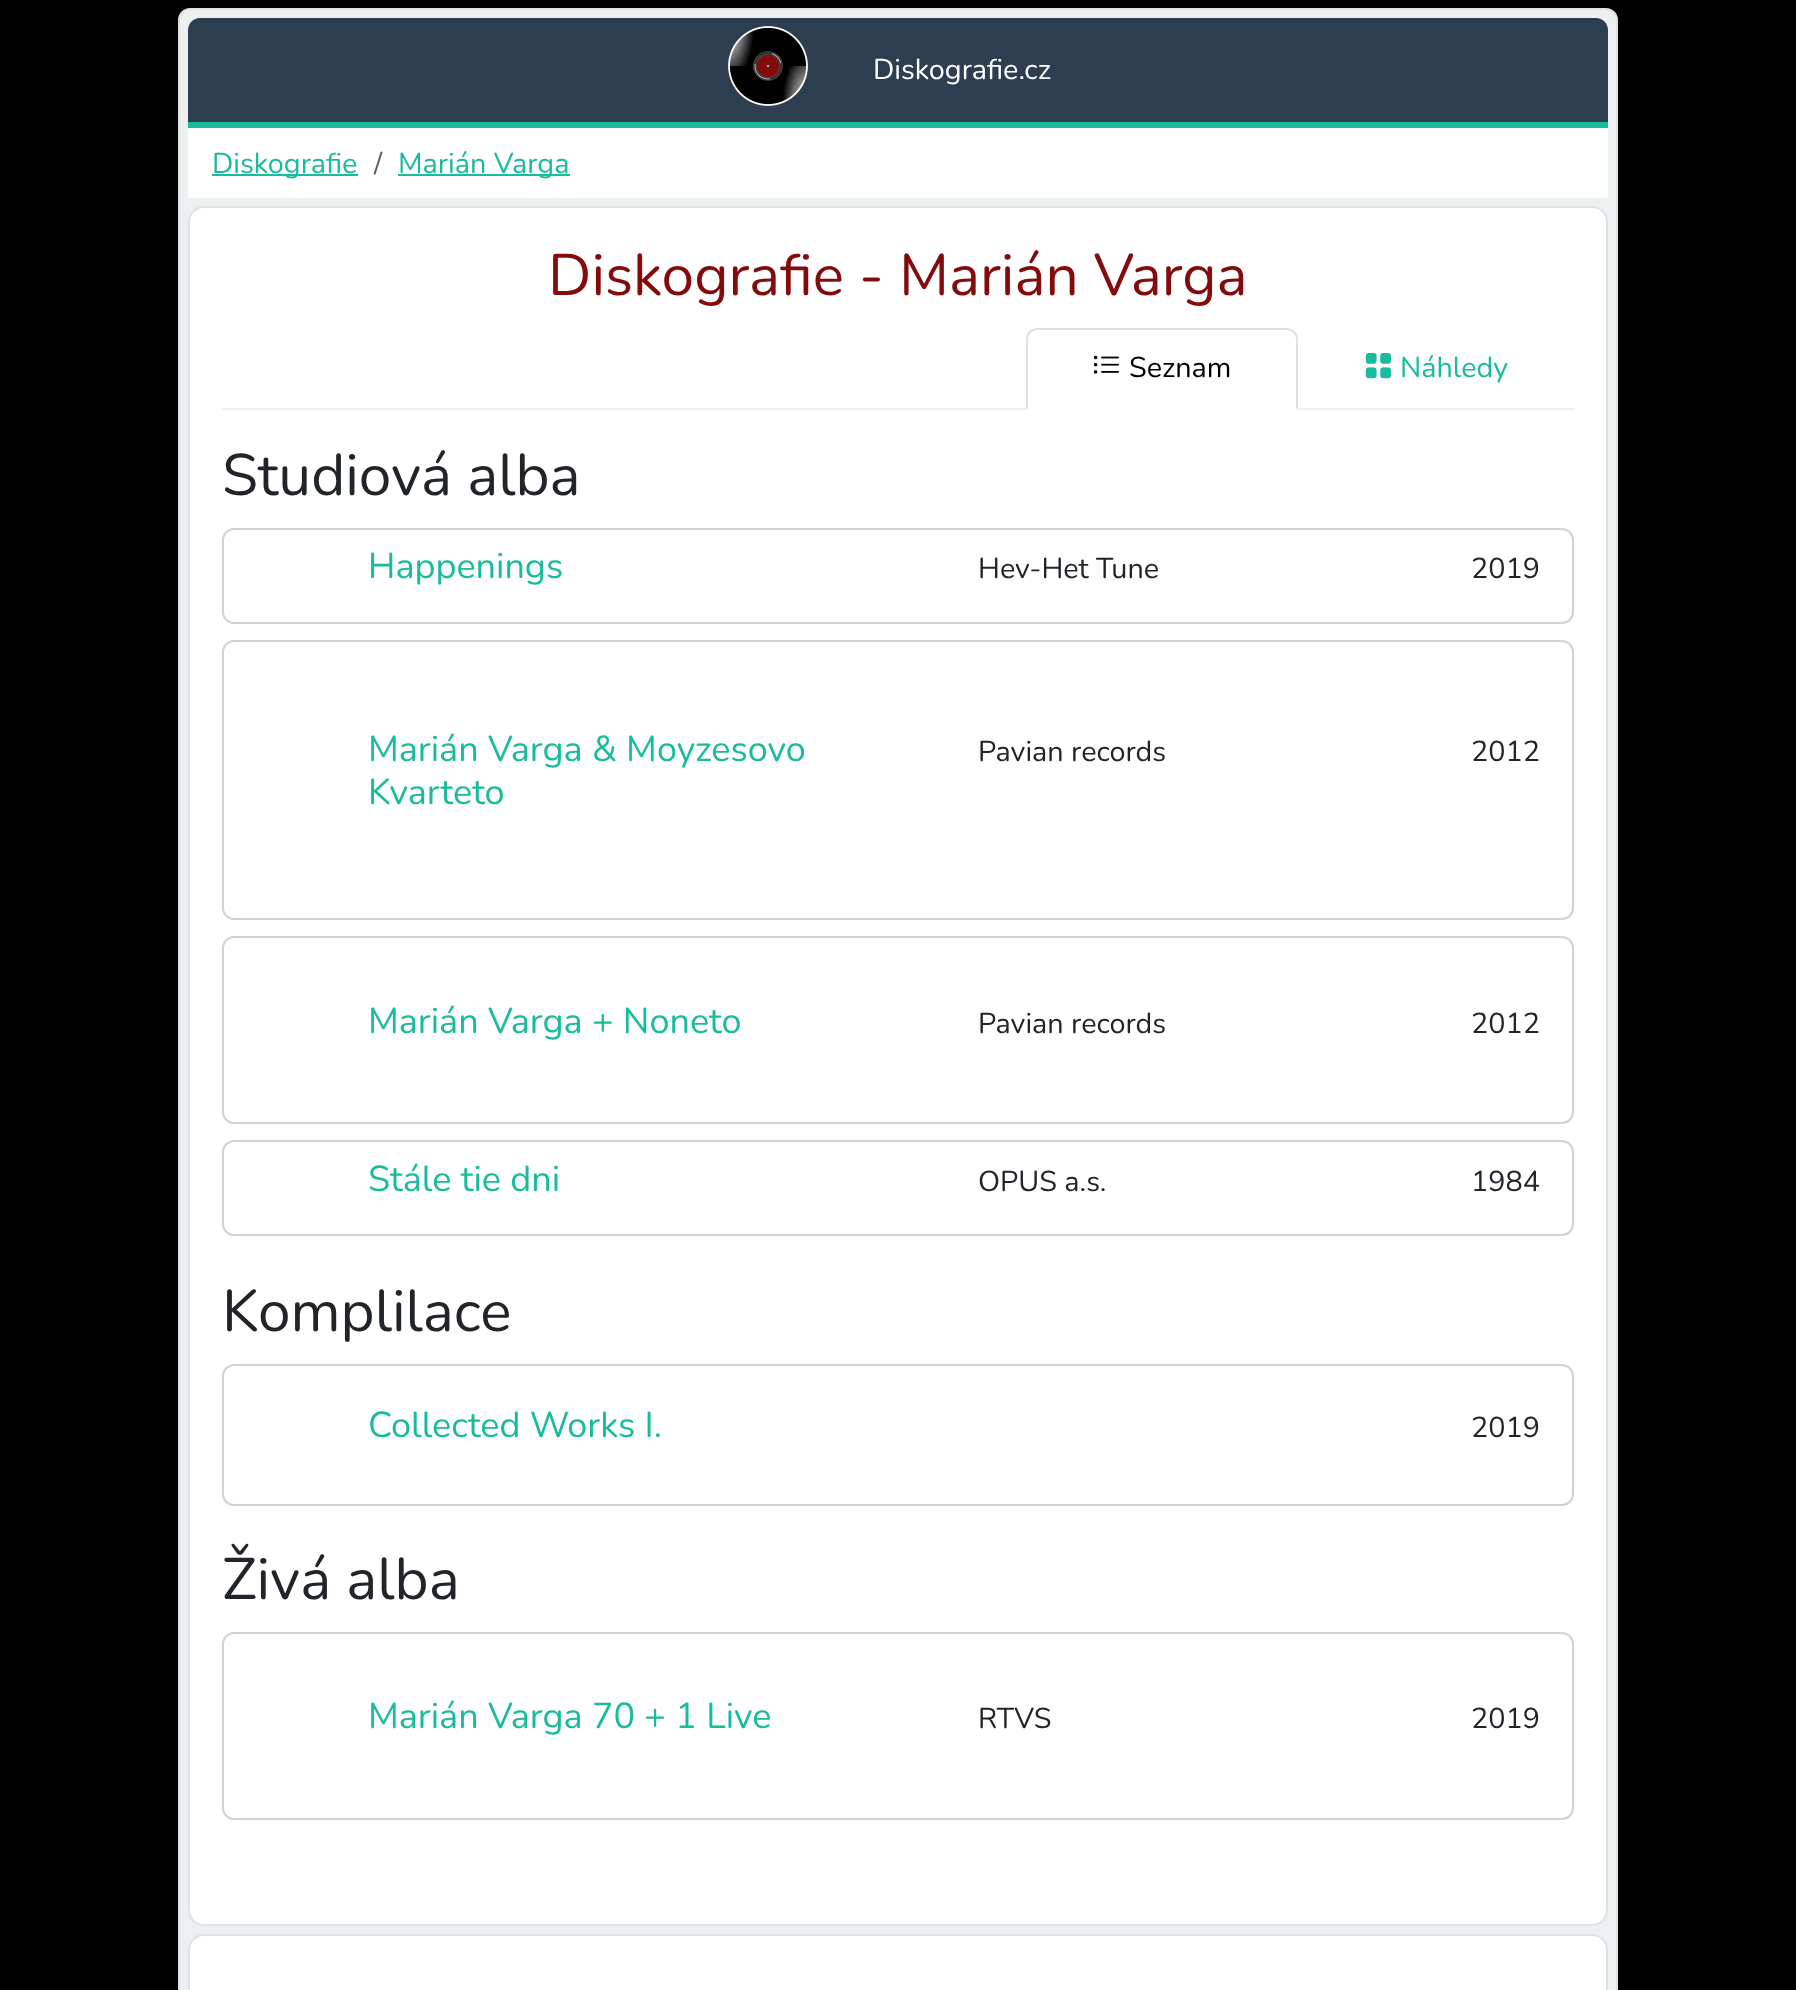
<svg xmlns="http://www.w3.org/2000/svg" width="1796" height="1990">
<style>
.a{font:200 28.75px Nunito;fill:#fff}
.b{font:200 28.75px Nunito;fill:#18bc9c}
.c{font:200 28.75px Nunito;fill:#595c5f}
.d{font:200 58.5px Nunito;fill:#830b0b}
.e{font:200 28.75px Nunito;fill:#000}
.f{font:200 58.5px Nunito;fill:#212529}
.g{font:200 36px Nunito;fill:#18bc9c}
.h{font:200 28.75px Nunito;fill:#212529}
</style>
<rect width="100%" height="100%" fill="#000"/>
<rect fill="#ecf0f1" stroke="#dee2e6" stroke-width="2" x="179" y="9" width="1438" height="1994" rx="11"/>
<path fill="#2c3e50" d="M200 18h1396c6.5 0 12 5.5 12 12v98h-1420v-98c0-6.5 5.5-12 12-12z"/>
<path fill="#18bc9c" d="M188 122h1420v6H188z"/>
<image href="1.png" x="728" y="26" width="80" height="80"/>
<path fill="#fff" d="M188 128h1420v70H188z"/>
<path fill="#18bc9c" d="M212 174h146v2H212z"/>
<path fill="#18bc9c" d="M398 174h172v2H398z"/>
<rect fill="#fff" stroke="#dee2e6" stroke-width="2" x="189" y="207" width="1418" height="1718" rx="15"/>
<path fill="#ecf0f1" d="M222 408h1352v2H222z"/>
<path fill="#fff" d="M1038 328h248c6.5 0 12 5.5 12 12v70h-272v-70c0-6.5 5.5-12 12-12z"/>
<path fill="#dee2e6" d="M1038 328c-4 0-6 1-9 3l2 2c1-2 4-3 7-3h248c3 0 6 1 7 3l2-2c-3-2-5-3-9-3z"/>
<path fill="#dee2e6" d="M1298 410v-70c0-4-1-6-3-9l-2 2c2 1 3 4 3 7v68z"/>
<path fill="#fff" d="M1298 410l-2-2h-268l-2 2z"/>
<path fill="#dee2e6" d="M1026 410l2-2v-68c0-3 1-6 3-7l-2-2c-2 3-3 5-3 9z"/>
<image href="2.png" x="1093" y="355" width="26" height="19"/>
<image href="3.png" x="1365" y="353" width="26" height="26"/>
<rect fill="none" stroke="#d2d2d2" stroke-width="2" x="223" y="529" width="1350" height="94" rx="11"/>
<rect fill="none" stroke="#d2d2d2" stroke-width="2" x="223" y="641" width="1350" height="278" rx="11"/>
<rect fill="none" stroke="#d2d2d2" stroke-width="2" x="223" y="937" width="1350" height="186" rx="11"/>
<rect fill="none" stroke="#d2d2d2" stroke-width="2" x="223" y="1141" width="1350" height="94" rx="11"/>
<rect fill="none" stroke="#d2d2d2" stroke-width="2" x="223" y="1365" width="1350" height="140" rx="11"/>
<rect fill="none" stroke="#d2d2d2" stroke-width="2" x="223" y="1633" width="1350" height="186" rx="11"/>
<rect fill="#fff" stroke="#dee2e6" stroke-width="2" x="189" y="1935" width="1418" height="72" rx="15"/>
<text class="a" x="873" y="79">Diskografie.cz</text>
<text class="b" x="212" y="173">Diskografie</text>
<text class="c" x="374" y="173">/</text>
<text class="b" x="398" y="173">Marián Varga</text>
<text class="d" x="548" y="295">Diskografie - Marián Varga</text>
<text class="e" x="1129" y="377">Seznam</text>
<text class="b" x="1400" y="377">Náhledy</text>
<text class="f" x="222" y="495">Studiová alba</text>
<text class="g" x="368" y="578">Happenings</text>
<text class="h" x="978" y="578">Hev-Het Tune</text>
<text class="h" x="1471" y="578">2019</text>
<text class="g" x="368" y="761">Marián Varga &amp; Moyzesovo</text>
<text class="g" x="368" y="804">Kvarteto</text>
<text class="h" x="978" y="761">Pavian records</text>
<text class="h" x="1471" y="761">2012</text>
<text class="g" x="368" y="1033">Marián Varga + Noneto</text>
<text class="h" x="978" y="1033">Pavian records</text>
<text class="h" x="1471" y="1033">2012</text>
<text class="g" x="368" y="1191">Stále tie dni</text>
<text class="h" x="978" y="1191">OPUS a.s.</text>
<text class="h" x="1471" y="1191">1984</text>
<text class="f" x="222" y="1331">Komplilace</text>
<text class="g" x="368" y="1437">Collected Works I.</text>
<text class="h" x="1471" y="1437">2019</text>
<text class="f" x="222" y="1599">Živá alba</text>
<text class="g" x="368" y="1728">Marián Varga 70 + 1 Live</text>
<text class="h" x="978" y="1728">RTVS</text>
<text class="h" x="1471" y="1728">2019</text>
</svg>
